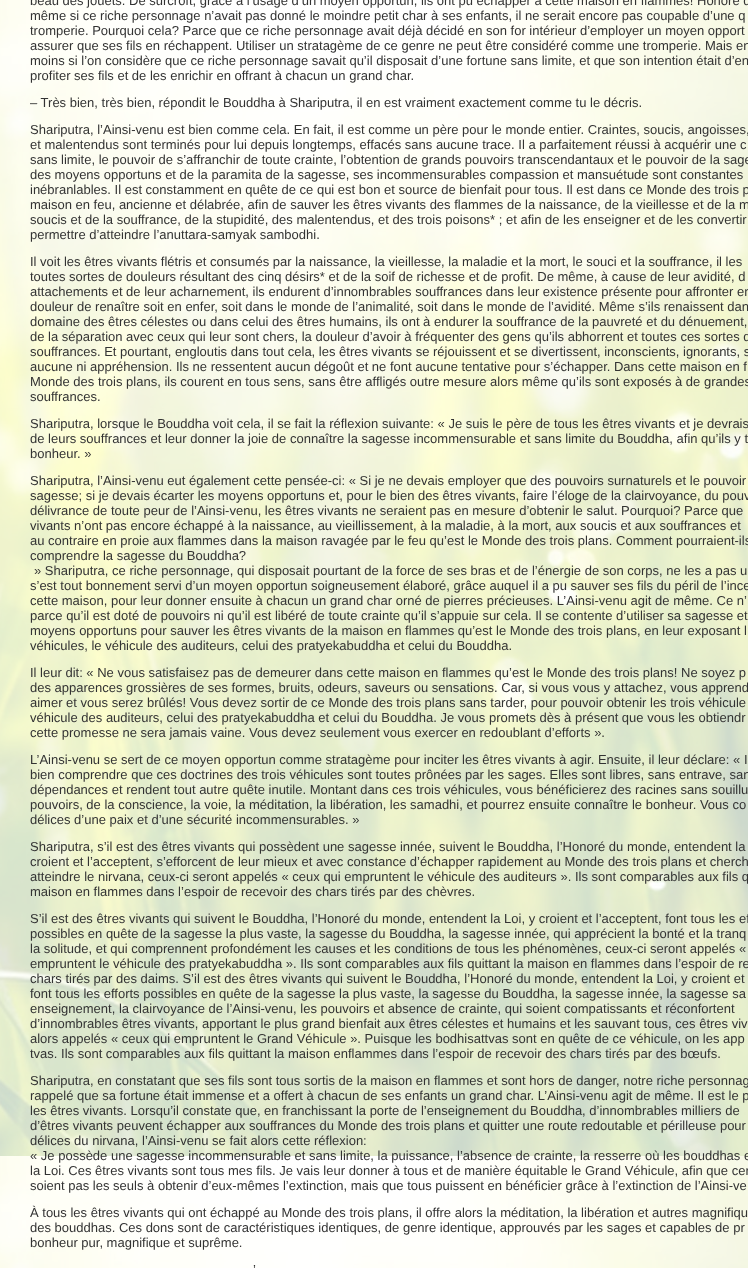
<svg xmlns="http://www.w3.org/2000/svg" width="748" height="1268">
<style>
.a{font:13px Liberation Sans;fill:#333}
</style>
<rect width="100%" height="100%" fill="#fff"/>
<image href="1.png" x="0" y="0" width="748" height="1268"/>
<text class="a" x="30" y="5">beau des jouets. De surcroît, grâce à l’usage d’un moyen opportun, ils ont pu échapper à cette maison en flammes! Honoré d</text>
<text class="a" x="30" y="20">même si ce riche personnage n’avait pas donné le moindre petit char à ses enfants, il ne serait encore pas coupable d’une q</text>
<text class="a" x="30" y="35">tromperie. Pourquoi cela? Parce que ce riche personnage avait déjà décidé en son for intérieur d’employer un moyen opport</text>
<text class="a" x="30" y="50">assurer que ses fils en réchappent. Utiliser un stratagème de ce genre ne peut être considéré comme une tromperie. Mais en</text>
<text class="a" x="30" y="65">moins si l’on considère que ce riche personnage savait qu’il disposait d’une fortune sans limite, et que son intention était d’en</text>
<text class="a" x="30" y="80">profiter ses fils et de les enrichir en offrant à chacun un grand char.</text>
<text class="a" x="30" y="107">– Très bien, très bien, répondit le Bouddha à Shariputra, il en est vraiment exactement comme tu le décris.</text>
<text class="a" x="30" y="134">Shariputra, l’Ainsi-venu est bien comme cela. En fait, il est comme un père pour le monde entier. Craintes, soucis, angoisses,</text>
<text class="a" x="30" y="149">et malentendus sont terminés pour lui depuis longtemps, effacés sans aucune trace. Il a parfaitement réussi à acquérir une c</text>
<text class="a" x="30" y="164">sans limite, le pouvoir de s’affranchir de toute crainte, l’obtention de grands pouvoirs transcendantaux et le pouvoir de la sage</text>
<text class="a" x="30" y="179">des moyens opportuns et de la paramita de la sagesse, ses incommensurables compassion et mansuétude sont constantes</text>
<text class="a" x="30" y="194">inébranlables. Il est constamment en quête de ce qui est bon et source de bienfait pour tous. Il est dans ce Monde des trois p</text>
<text class="a" x="30" y="209">maison en feu, ancienne et délabrée, afin de sauver les êtres vivants des flammes de la naissance, de la vieillesse et de la m</text>
<text class="a" x="30" y="224">soucis et de la souffrance, de la stupidité, des malentendus, et des trois poisons* ; et afin de les enseigner et de les convertir</text>
<text class="a" x="30" y="239">permettre d’atteindre l’anuttara-samyak sambodhi.</text>
<text class="a" x="30" y="266">Il voit les êtres vivants flétris et consumés par la naissance, la vieillesse, la maladie et la mort, le souci et la souffrance, il les</text>
<text class="a" x="30" y="281">toutes sortes de douleurs résultant des cinq désirs* et de la soif de richesse et de profit. De même, à cause de leur avidité, d</text>
<text class="a" x="30" y="296">attachements et de leur acharnement, ils endurent d’innombrables souffrances dans leur existence présente pour affronter en</text>
<text class="a" x="30" y="311">douleur de renaître soit en enfer, soit dans le monde de l’animalité, soit dans le monde de l’avidité. Même s’ils renaissent dan</text>
<text class="a" x="30" y="326">domaine des êtres célestes ou dans celui des êtres humains, ils ont à endurer la souffrance de la pauvreté et du dénuement,</text>
<text class="a" x="30" y="341">de la séparation avec ceux qui leur sont chers, la douleur d’avoir à fréquenter des gens qu’ils abhorrent et toutes ces sortes d</text>
<text class="a" x="30" y="356">souffrances. Et pourtant, engloutis dans tout cela, les êtres vivants se réjouissent et se divertissent, inconscients, ignorants, s</text>
<text class="a" x="30" y="371">aucune ni appréhension. Ils ne ressentent aucun dégoût et ne font aucune tentative pour s’échapper. Dans cette maison en f</text>
<text class="a" x="30" y="386">Monde des trois plans, ils courent en tous sens, sans être affligés outre mesure alors même qu’ils sont exposés à de grandes</text>
<text class="a" x="30" y="401">souffrances.</text>
<text class="a" x="30" y="428">Shariputra, lorsque le Bouddha voit cela, il se fait la réflexion suivante: « Je suis le père de tous les êtres vivants et je devrais</text>
<text class="a" x="30" y="443">de leurs souffrances et leur donner la joie de connaître la sagesse incommensurable et sans limite du Bouddha, afin qu’ils y t</text>
<text class="a" x="30" y="458">bonheur. »</text>
<text class="a" x="30" y="485">Shariputra, l’Ainsi-venu eut également cette pensée-ci: « Si je ne devais employer que des pouvoirs surnaturels et le pouvoir</text>
<text class="a" x="30" y="500">sagesse; si je devais écarter les moyens opportuns et, pour le bien des êtres vivants, faire l’éloge de la clairvoyance, du pouv</text>
<text class="a" x="30" y="515">délivrance de toute peur de l’Ainsi-venu, les êtres vivants ne seraient pas en mesure d’obtenir le salut. Pourquoi? Parce que</text>
<text class="a" x="30" y="530">vivants n’ont pas encore échappé à la naissance, au vieillissement, à la maladie, à la mort, aux soucis et aux souffrances et</text>
<text class="a" x="30" y="545">au contraire en proie aux flammes dans la maison ravagée par le feu qu’est le Monde des trois plans. Comment pourraient-ils</text>
<text class="a" x="30" y="560">comprendre la sagesse du Bouddha?</text>
<text class="a" x="34" y="575">» Shariputra, ce riche personnage, qui disposait pourtant de la force de ses bras et de l’énergie de son corps, ne les a pas u</text>
<text class="a" x="30" y="590">s’est tout bonnement servi d’un moyen opportun soigneusement élaboré, grâce auquel il a pu sauver ses fils du péril de l’ince</text>
<text class="a" x="30" y="605">cette maison, pour leur donner ensuite à chacun un grand char orné de pierres précieuses. L’Ainsi-venu agit de même. Ce n’</text>
<text class="a" x="30" y="620">parce qu’il est doté de pouvoirs ni qu’il est libéré de toute crainte qu’il s’appuie sur cela. Il se contente d’utiliser sa sagesse et</text>
<text class="a" x="30" y="635">moyens opportuns pour sauver les êtres vivants de la maison en flammes qu’est le Monde des trois plans, en leur exposant l</text>
<text class="a" x="30" y="650">véhicules, le véhicule des auditeurs, celui des pratyekabuddha et celui du Bouddha.</text>
<text class="a" x="30" y="677">Il leur dit: « Ne vous satisfaisez pas de demeurer dans cette maison en flammes qu’est le Monde des trois plans! Ne soyez p</text>
<text class="a" x="30" y="692">des apparences grossières de ses formes, bruits, odeurs, saveurs ou sensations. Car, si vous vous y attachez, vous apprend</text>
<text class="a" x="30" y="707">aimer et vous serez brûlés! Vous devez sortir de ce Monde des trois plans sans tarder, pour pouvoir obtenir les trois véhicule</text>
<text class="a" x="30" y="722">véhicule des auditeurs, celui des pratyekabuddha et celui du Bouddha. Je vous promets dès à présent que vous les obtiendr</text>
<text class="a" x="30" y="737">cette promesse ne sera jamais vaine. Vous devez seulement vous exercer en redoublant d’efforts ».</text>
<text class="a" x="30" y="764">L’Ainsi-venu se sert de ce moyen opportun comme stratagème pour inciter les êtres vivants à agir. Ensuite, il leur déclare: « I</text>
<text class="a" x="30" y="779">bien comprendre que ces doctrines des trois véhicules sont toutes prônées par les sages. Elles sont libres, sans entrave, san</text>
<text class="a" x="30" y="794">dépendances et rendent tout autre quête inutile. Montant dans ces trois véhicules, vous bénéficierez des racines sans souillu</text>
<text class="a" x="30" y="809">pouvoirs, de la conscience, la voie, la méditation, la libération, les samadhi, et pourrez ensuite connaître le bonheur. Vous co</text>
<text class="a" x="30" y="824">délices d’une paix et d’une sécurité incommensurables. »</text>
<text class="a" x="30" y="851">Shariputra, s’il est des êtres vivants qui possèdent une sagesse innée, suivent le Bouddha, l’Honoré du monde, entendent la</text>
<text class="a" x="30" y="866">croient et l’acceptent, s’efforcent de leur mieux et avec constance d’échapper rapidement au Monde des trois plans et cherch</text>
<text class="a" x="30" y="881">atteindre le nirvana, ceux-ci seront appelés « ceux qui empruntent le véhicule des auditeurs ». Ils sont comparables aux fils q</text>
<text class="a" x="30" y="896">maison en flammes dans l’espoir de recevoir des chars tirés par des chèvres.</text>
<text class="a" x="30" y="923">S’il est des êtres vivants qui suivent le Bouddha, l’Honoré du monde, entendent la Loi, y croient et l’acceptent, font tous les ef</text>
<text class="a" x="30" y="938">possibles en quête de la sagesse la plus vaste, la sagesse du Bouddha, la sagesse innée, qui apprécient la bonté et la tranq</text>
<text class="a" x="30" y="953">la solitude, et qui comprennent profondément les causes et les conditions de tous les phénomènes, ceux-ci seront appelés «</text>
<text class="a" x="30" y="968">empruntent le véhicule des pratyekabuddha ». Ils sont comparables aux fils quittant la maison en flammes dans l’espoir de re</text>
<text class="a" x="30" y="983">chars tirés par des daims. S’il est des êtres vivants qui suivent le Bouddha, l’Honoré du monde, entendent la Loi, y croient et</text>
<text class="a" x="30" y="998">font tous les efforts possibles en quête de la sagesse la plus vaste, la sagesse du Bouddha, la sagesse innée, la sagesse sa</text>
<text class="a" x="30" y="1013">enseignement, la clairvoyance de l’Ainsi-venu, les pouvoirs et absence de crainte, qui soient compatissants et réconfortent</text>
<text class="a" x="30" y="1028">d’innombrables êtres vivants, apportant le plus grand bienfait aux êtres célestes et humains et les sauvant tous, ces êtres viv</text>
<text class="a" x="30" y="1043">alors appelés « ceux qui empruntent le Grand Véhicule ». Puisque les bodhisattvas sont en quête de ce véhicule, on les app</text>
<text class="a" x="30" y="1058">tvas. Ils sont comparables aux fils quittant la maison enflammes dans l’espoir de recevoir des chars tirés par des bœufs.</text>
<text class="a" x="30" y="1085">Shariputra, en constatant que ses fils sont tous sortis de la maison en flammes et sont hors de danger, notre riche personnag</text>
<text class="a" x="30" y="1100">rappelé que sa fortune était immense et a offert à chacun de ses enfants un grand char. L’Ainsi-venu agit de même. Il est le p</text>
<text class="a" x="30" y="1115">les êtres vivants. Lorsqu’il constate que, en franchissant la porte de l’enseignement du Bouddha, d’innombrables milliers de</text>
<text class="a" x="30" y="1130">d’êtres vivants peuvent échapper aux souffrances du Monde des trois plans et quitter une route redoutable et périlleuse pour</text>
<text class="a" x="30" y="1145">délices du nirvana, l’Ainsi-venu se fait alors cette réflexion:</text>
<text class="a" x="30" y="1160">« Je possède une sagesse incommensurable et sans limite, la puissance, l’absence de crainte, la resserre où les bouddhas e</text>
<text class="a" x="30" y="1175">la Loi. Ces êtres vivants sont tous mes fils. Je vais leur donner à tous et de manière équitable le Grand Véhicule, afin que cer</text>
<text class="a" x="30" y="1190">soient pas les seuls à obtenir d’eux-mêmes l’extinction, mais que tous puissent en bénéficier grâce à l’extinction de l’Ainsi-ve</text>
<text class="a" x="30" y="1217">À tous les êtres vivants qui ont échappé au Monde des trois plans, il offre alors la méditation, la libération et autres magnifiqu</text>
<text class="a" x="30" y="1232">des bouddhas. Ces dons sont de caractéristiques identiques, de genre identique, approuvés par les sages et capables de pr</text>
<text class="a" x="30" y="1247">bonheur pur, magnifique et suprême.</text>
<text class="a" x="253" y="1274">’</text>
</svg>
